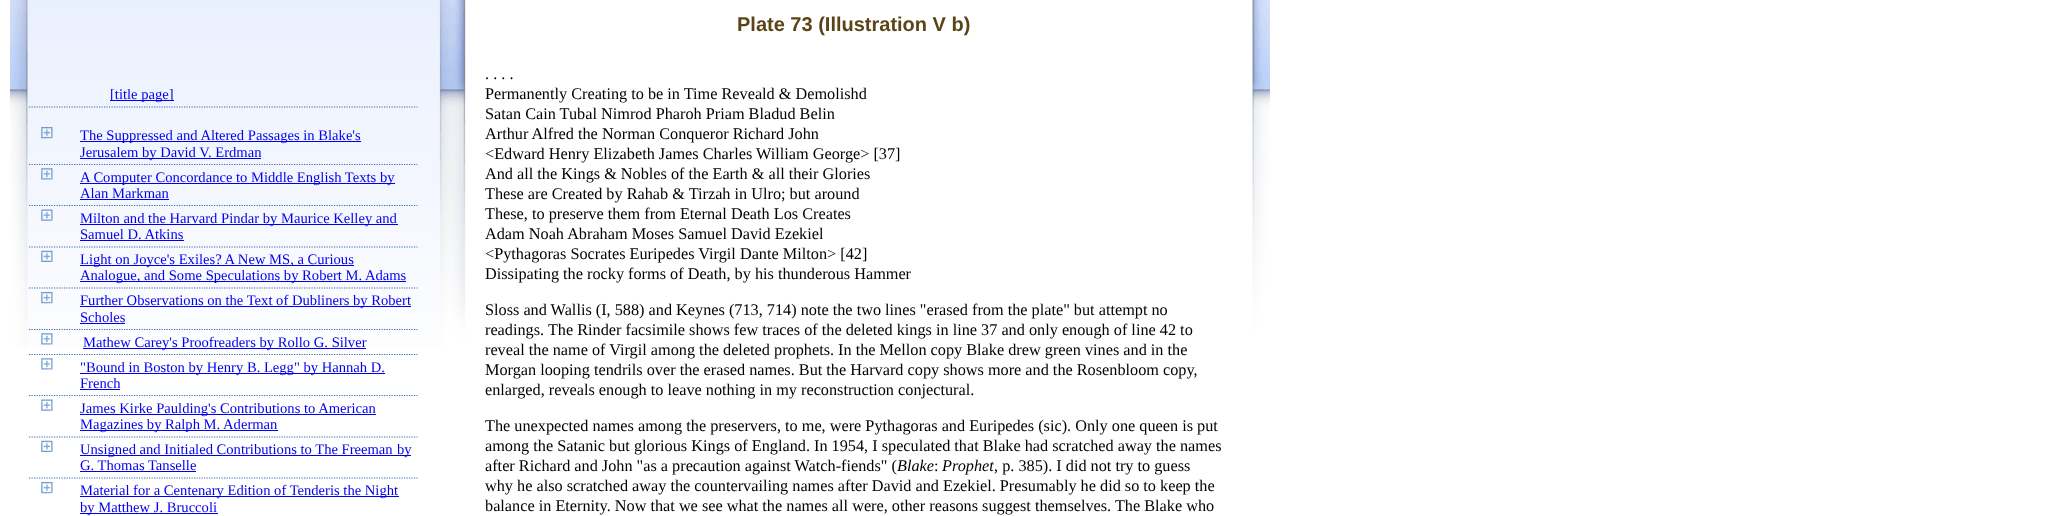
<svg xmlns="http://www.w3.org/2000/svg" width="2049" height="516">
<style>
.a{font:14.6px Liberation Serif;fill:#00e}
.b{font:bold 20px Liberation Sans;fill:#5b4418}
.c{font:16.25px Liberation Serif;fill:#000}
.d{font:italic 16.25px Liberation Serif;fill:#000}
</style>
<rect width="100%" height="100%" fill="#fff"/>
<image href="1.png" x="10" y="0" width="1260" height="348"/>
<path fill="none" stroke="#3f6dad" stroke-width="1.2" stroke-dasharray="1.25 1.25" d="M29 107h388.5"/>
<path fill="#00e" d="M110 100h64v1H110z"/>
<path fill="none" stroke="#3f6dad" stroke-width="1.2" stroke-dasharray="1.25 1.25" d="M29 164.5h388.5"/>
<image href="2.png" x="41" y="127" width="12" height="12"/>
<path fill="#00e" d="M80 141h281v1H80z"/>
<path fill="#00e" d="M80 158h181v1H80z"/>
<path fill="none" stroke="#3f6dad" stroke-width="1.2" stroke-dasharray="1.25 1.25" d="M29 205.5h388.5"/>
<image href="3.png" x="41" y="168" width="12" height="12"/>
<path fill="#00e" d="M80 183h315v1H80z"/>
<path fill="#00e" d="M80 199h89v1H80z"/>
<path fill="none" stroke="#3f6dad" stroke-width="1.2" stroke-dasharray="1.25 1.25" d="M29 247h388.5"/>
<image href="4.png" x="41" y="209" width="12" height="12"/>
<path fill="#00e" d="M80 224h318v1H80z"/>
<path fill="#00e" d="M80 240h104v1H80z"/>
<path fill="none" stroke="#3f6dad" stroke-width="1.2" stroke-dasharray="1.25 1.25" d="M29 288h388.5"/>
<image href="5.png" x="41" y="250" width="12" height="12"/>
<path fill="#00e" d="M80 265h274v1H80z"/>
<path fill="#00e" d="M80 281h326v1H80z"/>
<path fill="none" stroke="#3f6dad" stroke-width="1.2" stroke-dasharray="1.25 1.25" d="M29 329.5h388.5"/>
<image href="6.png" x="41" y="292" width="12" height="12"/>
<path fill="#00e" d="M80 306h331v1H80z"/>
<path fill="#00e" d="M80 323h45v1H80z"/>
<path fill="none" stroke="#3f6dad" stroke-width="1.2" stroke-dasharray="1.25 1.25" d="M29 354.5h388.5"/>
<image href="7.png" x="41" y="333" width="12" height="12"/>
<path fill="#00e" d="M83 348h283v1H83z"/>
<path fill="none" stroke="#3f6dad" stroke-width="1.2" stroke-dasharray="1.25 1.25" d="M29 395.5h388.5"/>
<image href="8.png" x="41" y="358" width="12" height="12"/>
<path fill="#00e" d="M80 373h305v1H80z"/>
<path fill="#00e" d="M80 389h40v1H80z"/>
<path fill="none" stroke="#3f6dad" stroke-width="1.2" stroke-dasharray="1.25 1.25" d="M29 437h388.5"/>
<image href="9.png" x="41" y="399" width="12" height="12"/>
<path fill="#00e" d="M80 414h296v1H80z"/>
<path fill="#00e" d="M80 430h198v1H80z"/>
<path fill="none" stroke="#3f6dad" stroke-width="1.2" stroke-dasharray="1.25 1.25" d="M29 478h388.5"/>
<image href="10.png" x="41" y="440" width="12" height="12"/>
<path fill="#00e" d="M80 455h331v1H80z"/>
<path fill="#00e" d="M80 471h116v1H80z"/>
<image href="11.png" x="41" y="482" width="12" height="12"/>
<path fill="#00e" d="M80 496h319v1H80z"/>
<path fill="#00e" d="M80 513h138v1H80z"/>
<text class="a" x="110" y="99">[title page]</text>
<text class="a" x="80" y="140">The Suppressed and Altered Passages in Blake's</text>
<text class="a" x="80" y="157">Jerusalem by David V. Erdman</text>
<text class="a" x="80" y="182">A Computer Concordance to Middle English Texts</text>
<text class="a" x="380" y="182">by</text>
<text class="a" x="80" y="198">Alan Markman</text>
<text class="a" x="80" y="223">Milton and the Harvard Pindar by Maurice Kelley and</text>
<text class="a" x="80" y="239">Samuel D. Atkins</text>
<text class="a" x="80" y="264">Light on Joyce's Exiles? A New MS, a Curious</text>
<text class="a" x="80" y="280">Analogue, and Some Speculations by Robert M. Adams</text>
<text class="a" x="80" y="305">Further Observations on the Text of Dubliners</text>
<text class="a" x="353" y="305">by Robert</text>
<text class="a" x="80" y="322">Scholes</text>
<text class="a" x="83" y="347">Mathew Carey's Proofreaders by Rollo G. Silver</text>
<text class="a" x="80" y="372">"Bound in Boston by Henry B. Legg" by Hannah D.</text>
<text class="a" x="80" y="388">French</text>
<text class="a" x="80" y="413">James Kirke Paulding's Contributions to American</text>
<text class="a" x="80" y="429">Magazines by Ralph M. Aderman</text>
<text class="a" x="80" y="454">Unsigned and Initialed Contributions to The Freeman</text>
<text class="a" x="397" y="454">by</text>
<text class="a" x="80" y="470">G. Thomas Tanselle</text>
<text class="a" x="80" y="495">Material for a Centenary Edition of Tenderis the Night</text>
<text class="a" x="80" y="512">by Matthew J. Bruccoli</text>
<text class="b" x="737" y="31">Plate 73 (Illustration V b)</text>
<text class="c" x="485" y="79">. . . .</text>
<text class="c" x="485" y="99">Permanently Creating to be in Time Reveald &amp; Demolishd</text>
<text class="c" x="485" y="119">Satan Cain Tubal Nimrod Pharoh Priam Bladud Belin</text>
<text class="c" x="485" y="139">Arthur Alfred the Norman Conqueror Richard John</text>
<text class="c" x="485" y="159">&lt;Edward Henry Elizabeth James Charles William George&gt; [37]</text>
<text class="c" x="485" y="179">And all the Kings &amp; Nobles of the Earth &amp; all their Glories</text>
<text class="c" x="485" y="199">These are Created by Rahab &amp; Tirzah in Ulro; but around</text>
<text class="c" x="485" y="219">These, to preserve them from Eternal Death Los Creates</text>
<text class="c" x="485" y="239">Adam Noah Abraham Moses Samuel David Ezekiel</text>
<text class="c" x="485" y="259">&lt;Pythagoras Socrates Euripedes Virgil Dante Milton&gt; [42]</text>
<text class="c" x="485" y="279">Dissipating the rocky forms of Death, by his thunderous Hammer</text>
<text class="c" x="485" y="315">Sloss and Wallis (I, 588) and Keynes (713, 714) note the two lines "erased from the plate" but attempt no</text>
<text class="c" x="485" y="335">readings. The Rinder facsimile shows few traces of the deleted kings in line 37 and only enough of line 42 to</text>
<text class="c" x="485" y="355">reveal the name of Virgil among the deleted prophets. In the Mellon copy Blake drew green vines and in the</text>
<text class="c" x="485" y="375">Morgan looping tendrils over the erased names. But the Harvard copy shows more and the Rosenbloom copy,</text>
<text class="c" x="485" y="395">enlarged, reveals enough to leave nothing in my reconstruction conjectural.</text>
<text class="c" x="485" y="431">The unexpected names among the preservers, to me, were Pythagoras and Euripedes (sic). Only one queen is put</text>
<text class="c" x="485" y="451">among the Satanic but glorious Kings of England. In 1954, I speculated that Blake had scratched away the names</text>
<text class="c" x="485" y="471">after Richard and John "as a precaution against Watch-fiends" (</text>
<text class="d" x="897" y="471">Blake</text>
<text class="c" x="934" y="471">:</text>
<text class="d" x="942" y="471">Prophet</text>
<text class="c" x="994" y="471">, p. 385). I did not try to guess</text>
<text class="c" x="485" y="491">why he also scratched away the countervailing names after David and Ezekiel. Presumably he did so to keep the</text>
<text class="c" x="485" y="511">balance in Eternity. Now that we see what the names all were, other reasons suggest themselves. The Blake who</text>
</svg>
